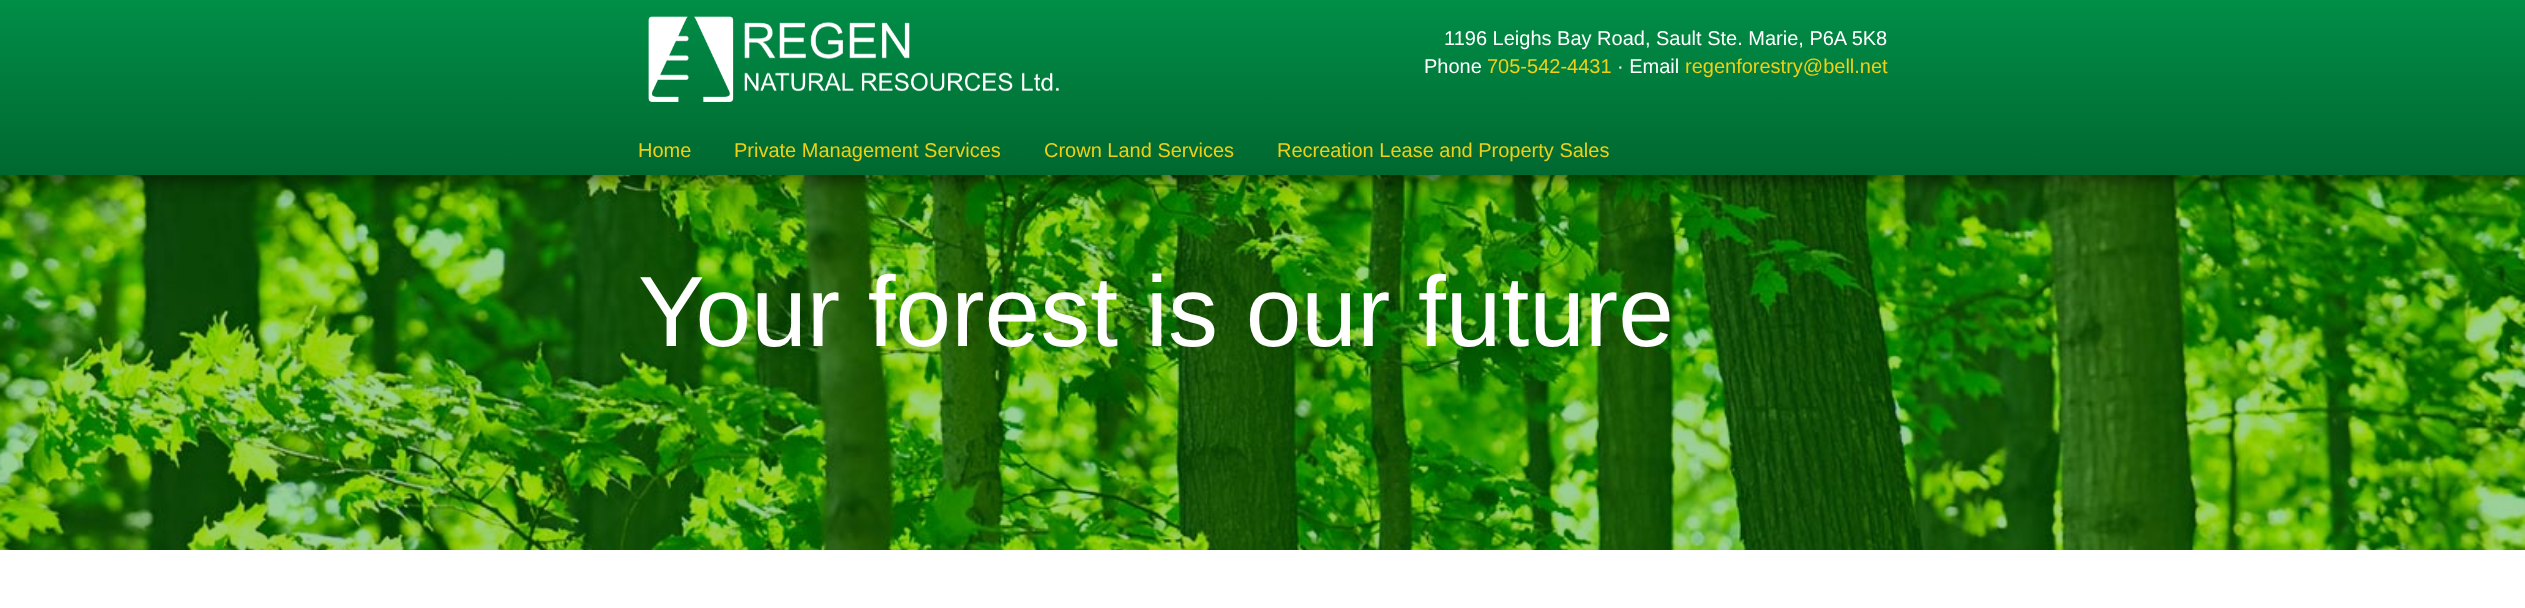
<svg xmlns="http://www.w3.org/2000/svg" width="2525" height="608">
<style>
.a{font:20px Liberation Sans;fill:#fff}
.b{font:20px Liberation Sans;fill:#efd016}
.c{font:100px Liberation Sans;fill:#fff}
</style>
<defs>
<linearGradient id="g1" gradientUnits="userSpaceOnUse" x1="1263" y1="0" x2="1263" y2="175"><stop offset="0" stop-color="#008e47"/><stop offset="1" stop-color="#006830"/></linearGradient>
</defs>
<rect width="100%" height="100%" fill="#fff"/>
<image href="2.png" x="0" y="175" width="2525" height="375"/>
<path fill="#000000bf" filter="blur(11px)" d="M3 6h2520v170H3z"/>
<path fill="url(#g1)" d="M0 0h2525v175H0z"/>
<image href="1.png" x="648" y="16" width="411" height="86"/>
<text class="a" x="1444" y="45">1196 Leighs Bay Road, Sault Ste. Marie, P6A 5K8</text>
<text class="a" x="1424" y="73">Phone</text>
<text class="b" x="1487" y="73">705-542-4431</text>
<text class="a" x="1617" y="73">· Email</text>
<text class="b" x="1685" y="73">regenforestry@bell.net</text>
<text class="b" x="638" y="157">Home</text>
<text class="b" x="734" y="157">Private Management Services</text>
<text class="b" x="1044" y="157">Crown Land Services</text>
<text class="b" x="1277" y="157">Recreation Lease and Property Sales</text>
<text class="c" x="638" y="346">Your forest is our future</text>
</svg>
